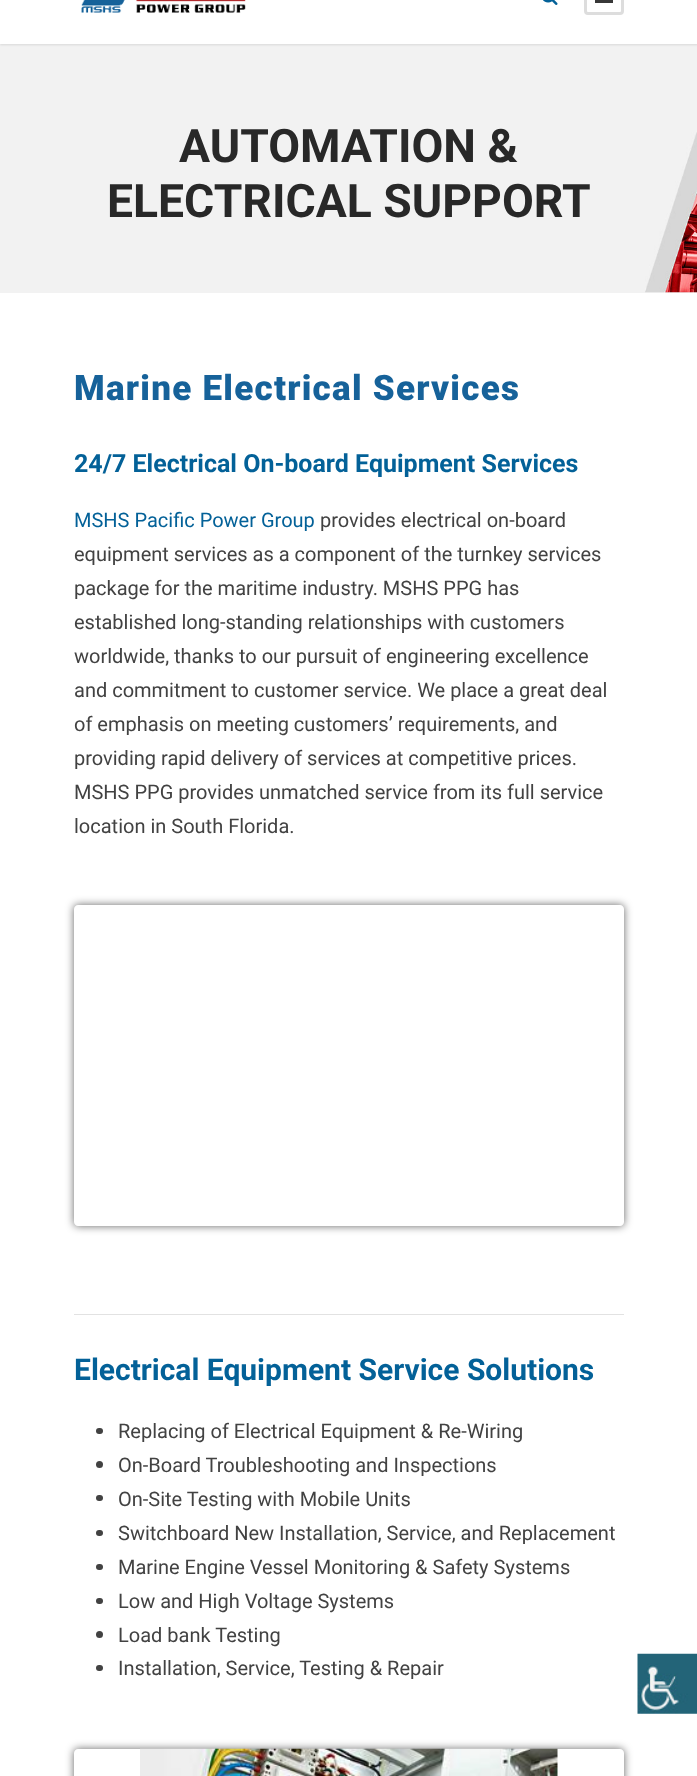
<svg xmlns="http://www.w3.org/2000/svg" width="697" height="1776">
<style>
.a{font:bold 46.25px Roboto;fill:#282828}
.b{font:900 35px Roboto;letter-spacing:1.25px;fill:#16629a}
.c{font:bold 25px Roboto;fill:#036198}
.d{font:20px Roboto;fill:#036198}
.e{font:20px Roboto;fill:#424242}
.f{font:bold 30px Roboto;fill:#036198}
</style>
<defs>
<clipPath id="clip1"><path d="M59 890h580v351h-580zm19 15h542c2 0 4 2 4 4v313c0 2-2 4-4 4h-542c-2 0-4-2-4-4v-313c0-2 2-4 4-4z" clip-rule="evenodd"/></clipPath>
<clipPath id="clip2"><path d="M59 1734h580v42h-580zm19 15h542c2 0 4 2 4 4v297c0 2-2 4-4 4h-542c-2 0-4-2-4-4v-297c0-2 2-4 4-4z" clip-rule="evenodd"/></clipPath>
</defs>
<rect width="100%" height="100%" fill="#fff"/>
<path fill="#f2f2f2" d="M0 44h697v249H0z"/>
<path fill="#0000001a" filter="blur(1px)" d="M0 -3h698v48H0z"/>
<path fill="#fff" d="M0 0h697v44H0z"/>
<image href="1.png" x="81" y="0" width="165" height="13"/>
<image href="2.png" x="543" y="0" width="15" height="5"/>
<rect fill="none" stroke="#ddd" stroke-width="3" x="585.5" y="-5.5" width="37" height="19" rx="2.5"/>
<path fill="#383838" d="M595 0h18v3H595z"/>
<image href="3.png" x="645" y="132" width="52" height="161"/>
<g clip-path="url(#clip1)">
<rect fill="#00000099" filter="blur(4.5px)" x="74" y="905" width="550" height="321" rx="4"/>
</g>
<path fill="#e2e2e2" d="M74 1314h550v1H74z"/>
<rect fill="#424242" x="96" y="1428" width="7" height="6" rx="3"/>
<circle fill="#424242" cx="99.5" cy="1464.5" r="3.5"/>
<rect fill="#424242" x="96" y="1495" width="7" height="6" rx="3"/>
<rect fill="#424242" x="96" y="1530" width="7" height="6" rx="3"/>
<rect fill="#424242" x="96" y="1564" width="7" height="6" rx="3"/>
<rect fill="#424242" x="96" y="1598" width="7" height="6" rx="3"/>
<circle fill="#424242" cx="99.5" cy="1634.5" r="3.5"/>
<rect fill="#424242" x="96" y="1665" width="7" height="6" rx="3"/>
<g clip-path="url(#clip2)">
<rect fill="#00000099" filter="blur(4.5px)" x="74" y="1749" width="550" height="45" rx="4"/>
</g>
<image href="4.png" x="140" y="1748" width="418" height="28"/>
<image href="5.png" x="637" y="1653" width="60" height="61"/>
<text class="a" x="179" y="162">AUTOMATION &amp;</text>
<text class="a" x="107" y="217">ELECTRICAL SUPPORT</text>
<text class="b" x="74" y="400">Marine Electrical Services</text>
<text class="c" x="74" y="472">24/7 Electrical On-board Equipment Services</text>
<text class="d" x="74" y="527">MSHS Pacific Power Group</text>
<text class="e" x="320" y="527">provides electrical on-board</text>
<text class="e" x="74" y="561">equipment services as a component of the turnkey services</text>
<text class="e" x="74" y="595">package for the maritime industry. MSHS PPG has</text>
<text class="e" x="74" y="629">established long-standing relationships with customers</text>
<text class="e" x="74" y="663">worldwide, thanks to our pursuit of engineering excellence</text>
<text class="e" x="74" y="697">and commitment to customer service. We place a great deal</text>
<text class="e" x="74" y="731">of emphasis on meeting customers’ requirements, and</text>
<text class="e" x="74" y="765">providing rapid delivery of services at competitive prices.</text>
<text class="e" x="74" y="799">MSHS PPG provides unmatched service from its full service</text>
<text class="e" x="74" y="833">location in South Florida.</text>
<text class="f" x="74" y="1380">Electrical Equipment Service Solutions</text>
<text class="e" x="118" y="1438">Replacing of Electrical Equipment &amp; Re-Wiring</text>
<text class="e" x="118" y="1472">On-Board Troubleshooting and Inspections</text>
<text class="e" x="118" y="1506">On-Site Testing with Mobile Units</text>
<text class="e" x="118" y="1540">Switchboard New Installation, Service, and Replacement</text>
<text class="e" x="118" y="1574">Marine Engine Vessel Monitoring &amp; Safety Systems</text>
<text class="e" x="118" y="1608">Low and High Voltage Systems</text>
<text class="e" x="118" y="1642">Load bank Testing</text>
<text class="e" x="118" y="1675">Installation, Service, Testing &amp; Repair</text>
</svg>
